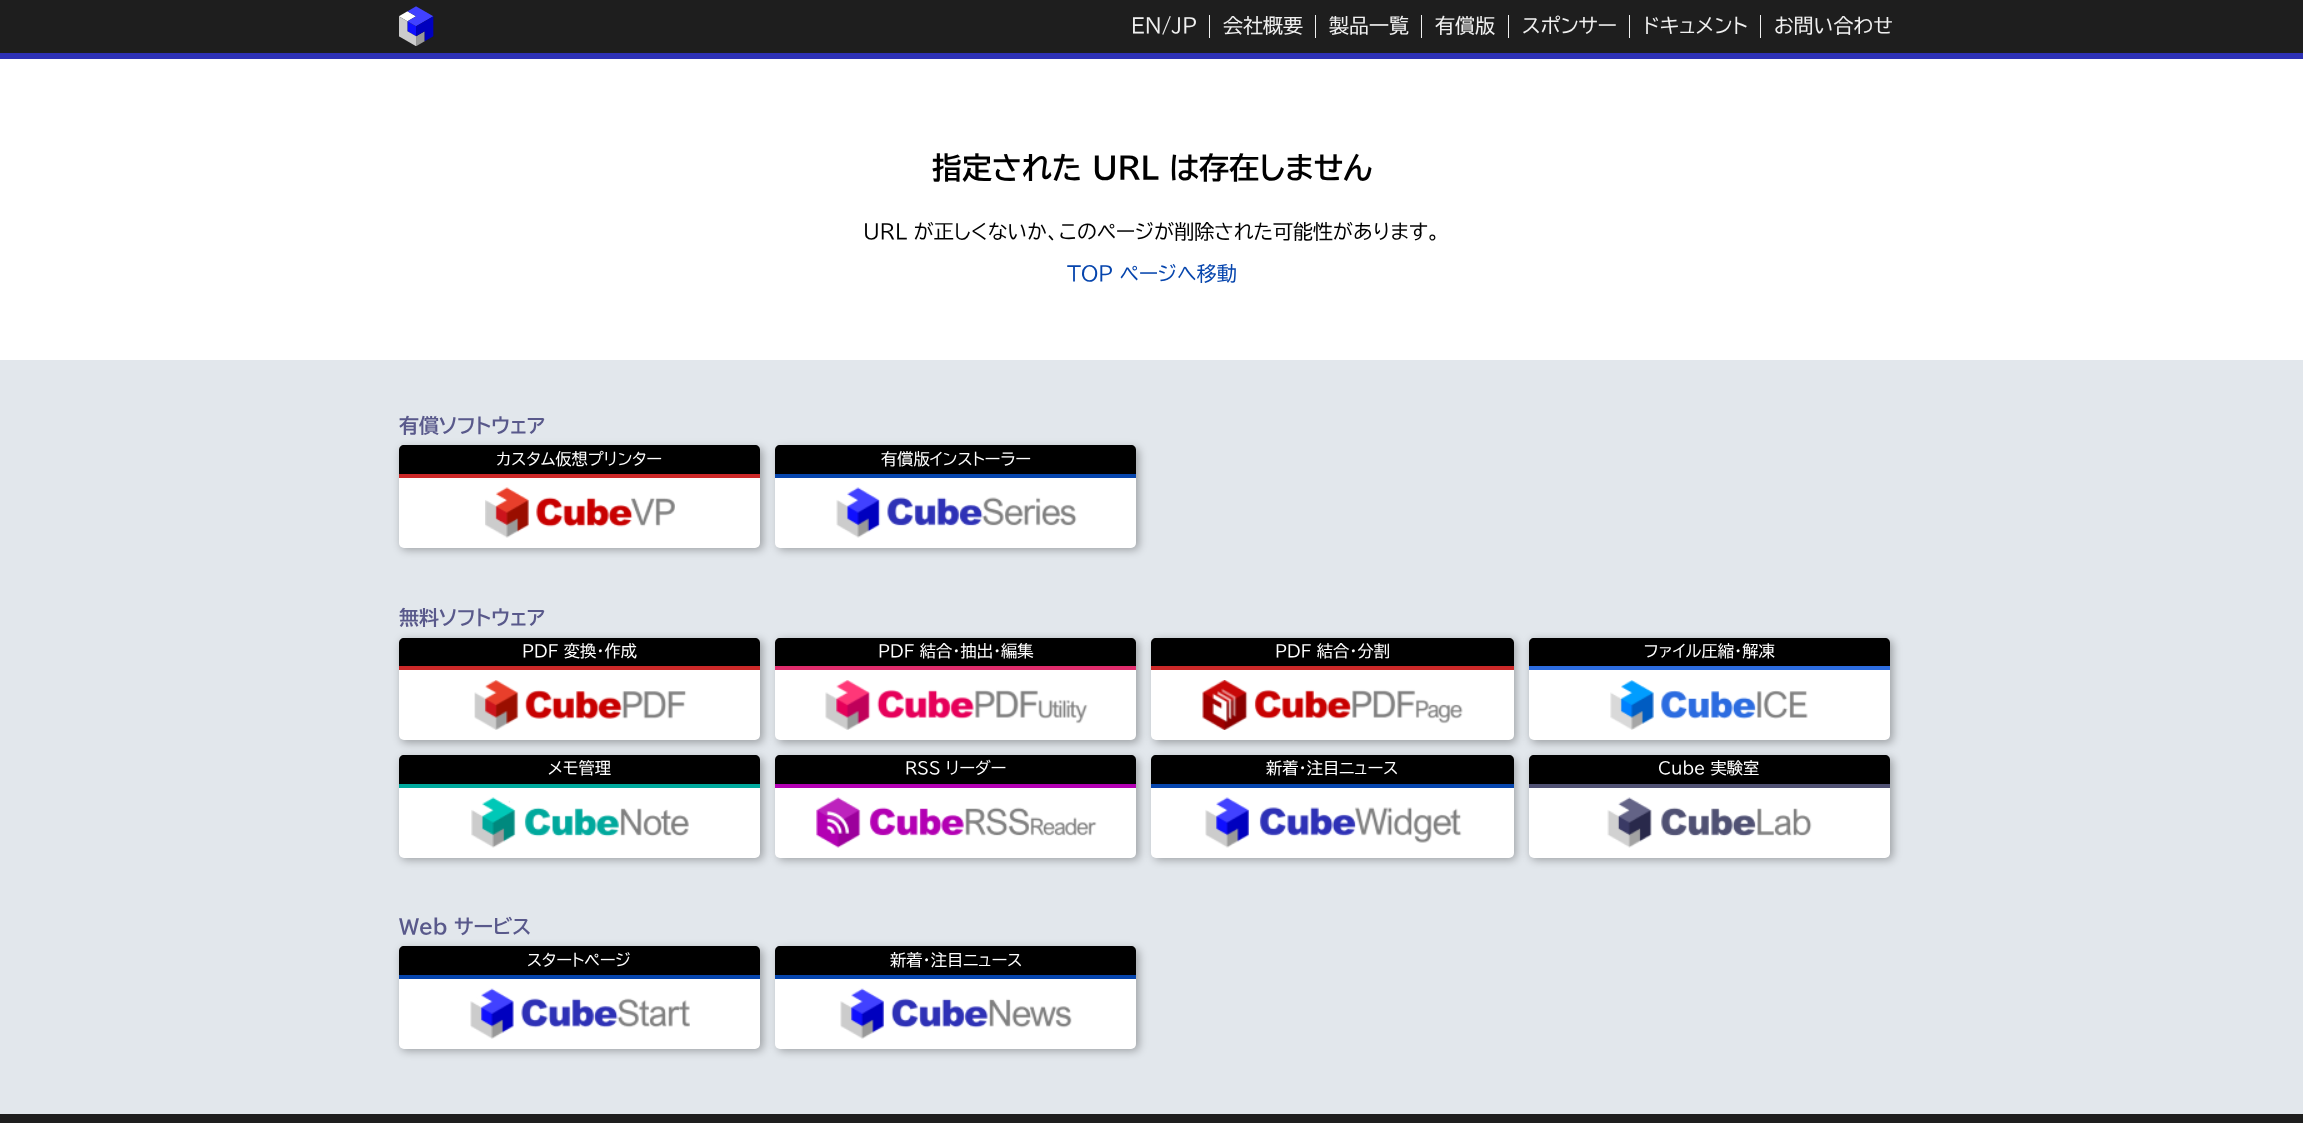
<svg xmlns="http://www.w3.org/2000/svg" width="2303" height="1123">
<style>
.a{font:20px BIZ UDPGothic;fill:#f0f0f0}
.b{font:bold 30px BIZ UDPGothic;fill:#000}
.c{font:20px BIZ UDPGothic;fill:#000}
.d{font:20px BIZ UDPGothic;fill:#0645ad}
.e{font:bold 20px BIZ UDPGothic;fill:#59598b}
.f{font:16.25px BIZ UDPGothic;fill:#fff}
</style>
<rect width="100%" height="100%" fill="#fff"/>
<path fill="#1e1e1e" d="M0 0h2303v53H0z"/>
<path fill="#2e31b6" d="M0 53h2303v6H0z"/>
<image href="1.png" x="399" y="6" width="35" height="40"/>
<path fill="#f0f0f0" d="M1209 15h1v23H1209z"/>
<path fill="#f0f0f0" d="M1315 15h1v23H1315z"/>
<path fill="#f0f0f0" d="M1421 15h1v23H1421z"/>
<path fill="#f0f0f0" d="M1508 15h1v23H1508z"/>
<path fill="#f0f0f0" d="M1629 15h1v23H1629z"/>
<path fill="#f0f0f0" d="M1760 15h1v23H1760z"/>
<path fill="#e2e7ec" d="M0 360h2303v754H0z"/>
<rect fill="#0000004d" filter="blur(4px)" x="401" y="448" width="362" height="102" rx="5"/>
<rect fill="#fff" x="399" y="445" width="361" height="103" rx="5"/>
<path fill="#000" d="M404 445h351c3 0 5 2 5 5v24h-361v-24c0-3 2-5 5-5z"/>
<path fill="#cc2828" d="M399 474h361v4H399z"/>
<image href="2.png" x="485" y="487" width="190" height="51"/>
<rect fill="#0000004d" filter="blur(4px)" x="778" y="448" width="361" height="102" rx="5"/>
<rect fill="#fff" x="775" y="445" width="361" height="103" rx="5"/>
<path fill="#000" d="M780 445h351c3 0 5 2 5 5v24h-361v-24c0-3 2-5 5-5z"/>
<path fill="#0645ad" d="M775 474h361v4H775z"/>
<image href="3.png" x="836" y="487" width="241" height="51"/>
<rect fill="#0000004d" filter="blur(4px)" x="401" y="640" width="362" height="103" rx="5"/>
<rect fill="#fff" x="399" y="638" width="361" height="102" rx="5"/>
<path fill="#000" d="M404 638h351c3 0 5 2 5 5v23h-361v-23c0-3 2-5 5-5z"/>
<path fill="#cc2828" d="M399 666h361v4H399z"/>
<image href="4.png" x="474" y="680" width="213" height="50"/>
<rect fill="#0000004d" filter="blur(4px)" x="778" y="640" width="361" height="103" rx="5"/>
<rect fill="#fff" x="775" y="638" width="361" height="102" rx="5"/>
<path fill="#000" d="M780 638h351c3 0 5 2 5 5v23h-361v-23c0-3 2-5 5-5z"/>
<path fill="#e02c6c" d="M775 666h361v4H775z"/>
<image href="5.png" x="825" y="680" width="263" height="50"/>
<rect fill="#0000004d" filter="blur(4px)" x="1154" y="640" width="362" height="103" rx="5"/>
<rect fill="#fff" x="1151" y="638" width="363" height="102" rx="5"/>
<path fill="#000" d="M1156 638h353c3 0 5 2 5 5v23h-363v-23c0-3 2-5 5-5z"/>
<path fill="#cc2828" d="M1151 666h363v4H1151z"/>
<image href="6.png" x="1202" y="680" width="261" height="50"/>
<rect fill="#0000004d" filter="blur(4px)" x="1531" y="640" width="362" height="103" rx="5"/>
<rect fill="#fff" x="1529" y="638" width="361" height="102" rx="5"/>
<path fill="#000" d="M1534 638h351c3 0 5 2 5 5v23h-361v-23c0-3 2-5 5-5z"/>
<path fill="#2c6ce0" d="M1529 666h361v4H1529z"/>
<image href="7.png" x="1610" y="680" width="198" height="50"/>
<rect fill="#0000004d" filter="blur(4px)" x="401" y="758" width="362" height="102" rx="5"/>
<rect fill="#fff" x="399" y="755" width="361" height="103" rx="5"/>
<path fill="#000" d="M404 755h351c3 0 5 2 5 5v24h-361v-24c0-3 2-5 5-5z"/>
<path fill="#00a99d" d="M399 784h361v4H399z"/>
<image href="8.png" x="471" y="797" width="218" height="51"/>
<rect fill="#0000004d" filter="blur(4px)" x="778" y="758" width="361" height="102" rx="5"/>
<rect fill="#fff" x="775" y="755" width="361" height="103" rx="5"/>
<path fill="#000" d="M780 755h351c3 0 5 2 5 5v24h-361v-24c0-3 2-5 5-5z"/>
<path fill="#b300b3" d="M775 784h361v4H775z"/>
<image href="9.png" x="816" y="797" width="281" height="51"/>
<rect fill="#0000004d" filter="blur(4px)" x="1154" y="758" width="362" height="102" rx="5"/>
<rect fill="#fff" x="1151" y="755" width="363" height="103" rx="5"/>
<path fill="#000" d="M1156 755h353c3 0 5 2 5 5v24h-363v-24c0-3 2-5 5-5z"/>
<path fill="#0645ad" d="M1151 784h363v4H1151z"/>
<image href="10.png" x="1205" y="797" width="257" height="51"/>
<rect fill="#0000004d" filter="blur(4px)" x="1531" y="758" width="362" height="102" rx="5"/>
<rect fill="#fff" x="1529" y="755" width="361" height="103" rx="5"/>
<path fill="#000" d="M1534 755h351c3 0 5 2 5 5v24h-361v-24c0-3 2-5 5-5z"/>
<path fill="#505173" d="M1529 784h361v4H1529z"/>
<image href="11.png" x="1607" y="797" width="205" height="51"/>
<rect fill="#0000004d" filter="blur(4px)" x="401" y="949" width="362" height="102" rx="5"/>
<rect fill="#fff" x="399" y="946" width="361" height="103" rx="5"/>
<path fill="#000" d="M404 946h351c3 0 5 2 5 5v24h-361v-24c0-3 2-5 5-5z"/>
<path fill="#0645ad" d="M399 975h361v4H399z"/>
<image href="12.png" x="470" y="988" width="220" height="51"/>
<rect fill="#0000004d" filter="blur(4px)" x="778" y="949" width="361" height="102" rx="5"/>
<rect fill="#fff" x="775" y="946" width="361" height="103" rx="5"/>
<path fill="#000" d="M780 946h351c3 0 5 2 5 5v24h-361v-24c0-3 2-5 5-5z"/>
<path fill="#0645ad" d="M775 975h361v4H775z"/>
<image href="13.png" x="840" y="988" width="232" height="51"/>
<path fill="#1e1e1e" d="M0 1114h2303v9H0z"/>
<text class="a" x="1131" y="33">EN/JP</text>
<text class="a" x="1223" y="33">会社概要</text>
<text class="a" x="1329" y="33">製品一覧</text>
<text class="a" x="1435" y="33">有償版</text>
<text class="a" x="1522" y="33">スポンサー</text>
<text class="a" x="1643" y="33">ドキュメント</text>
<text class="a" x="1774" y="33">お問い合わせ</text>
<text class="b" x="932" y="179">指定された URL は存在しません</text>
<text class="c" x="863" y="239">URL が正しくないか、このページが削除された可能性があります。</text>
<text class="d" x="1067" y="281">TOP ページへ移動</text>
<text class="e" x="399" y="433">有償ソフトウェア</text>
<text class="f" x="496" y="465">カスタム仮想プリンター</text>
<text class="f" x="881" y="465">有償版インストーラー</text>
<text class="e" x="399" y="625">無料ソフトウェア</text>
<text class="f" x="522" y="657">PDF 変換・作成</text>
<text class="f" x="878" y="657">PDF 結合・抽出・編集</text>
<text class="f" x="1275" y="657">PDF 結合・分割</text>
<text class="f" x="1644" y="657">ファイル圧縮・解凍</text>
<text class="f" x="548" y="774">メモ管理</text>
<text class="f" x="905" y="774">RSS リーダー</text>
<text class="f" x="1266" y="774">新着・注目ニュース</text>
<text class="f" x="1658" y="774">Cube 実験室</text>
<text class="e" x="399" y="934">Web サービス</text>
<text class="f" x="527" y="966">スタートページ</text>
<text class="f" x="890" y="966">新着・注目ニュース</text>
</svg>
